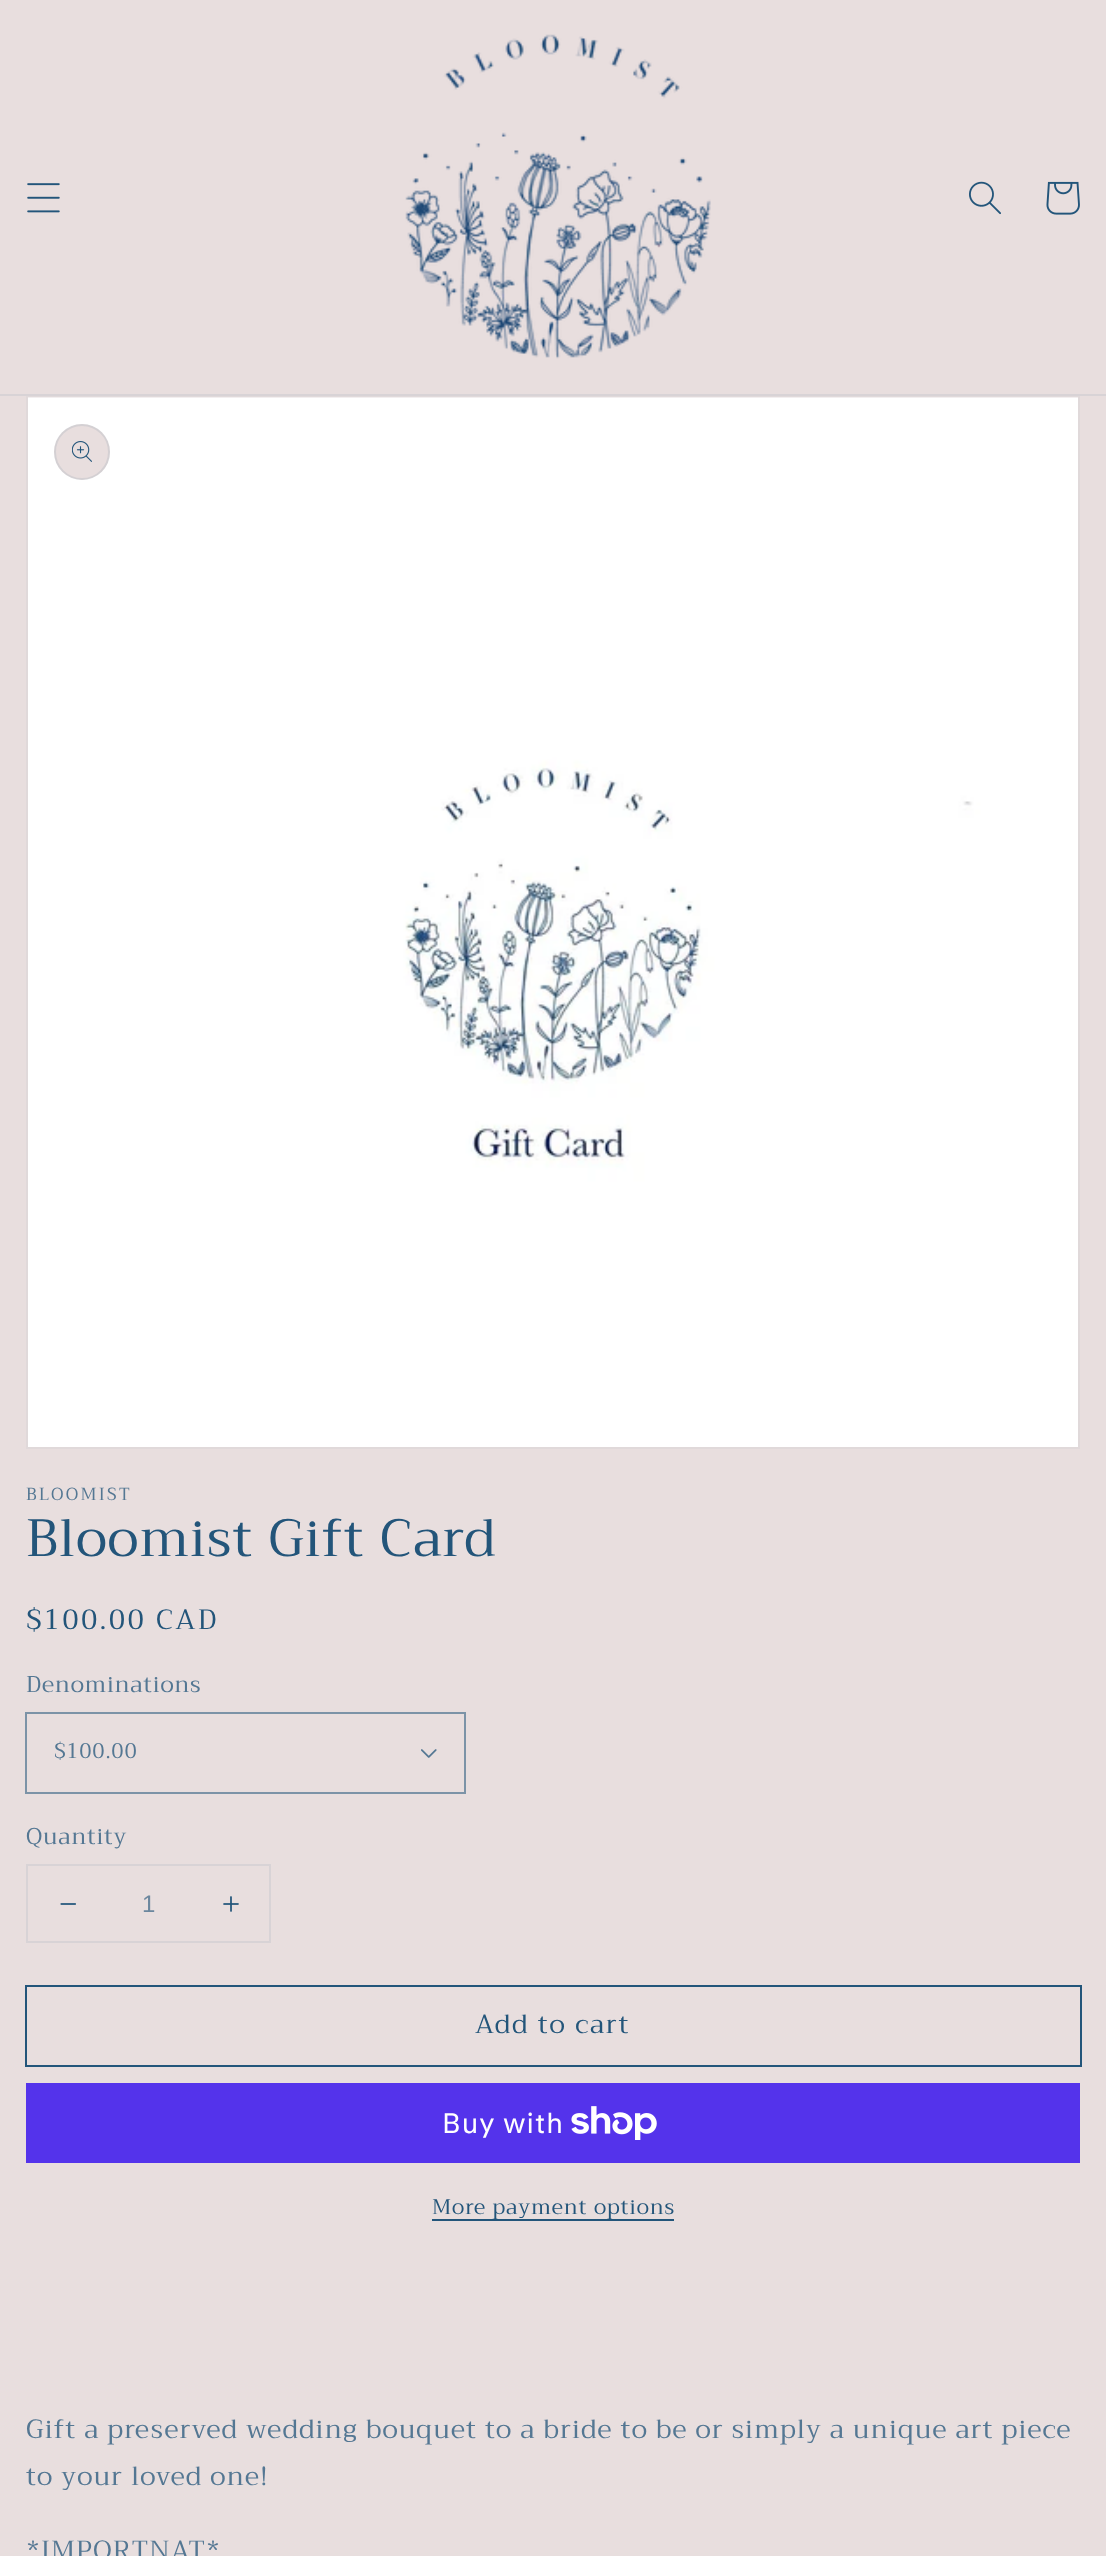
<svg xmlns="http://www.w3.org/2000/svg" width="1106" height="2556">
<style>
.a{font:17.5px Trirong;letter-spacing:2.25px;fill:#547793}
.b{font:52.5px Trirong;letter-spacing:1.05px;fill:#23557a}
.c{font:28px Trirong;letter-spacing:2.25px;fill:#23557a}
.d{font:22.75px Trirong;letter-spacing:0.75px;fill:#547793}
.e{font:21px Trirong;letter-spacing:0.75px;fill:#547793}
.f{font:24px Liberation Sans;fill:#6b879e}
.g{font:26.25px Trirong;letter-spacing:1.75px;fill:#23557a}
.h{font:28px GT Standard;letter-spacing:1.05px;fill:#fff}
.i{font:21px Trirong;letter-spacing:0.9px;fill:#23557a}
.j{font:26.25px Trirong;letter-spacing:1.05px;fill:#547793}
</style>
<rect width="100%" height="100%" fill="#e8dede"/>
<path fill="#d8d3d6" d="M0 394h1106v2H0z"/>
<image href="1.png" x="27" y="183" width="33" height="30"/>
<image href="2.png" x="405" y="34" width="306" height="325"/>
<image href="3.png" x="969" y="181" width="32" height="34"/>
<image href="4.png" x="1046" y="181" width="34" height="34"/>
<path fill="none" stroke="#e0d9da" stroke-width="2" d="M27 397h1052v1051H27z"/>
<image href="5.png" x="28" y="397" width="1050" height="1050"/>
<circle fill="#e8dede" cx="82" cy="452" r="28"/>
<circle fill="none" stroke="#23557a1a" stroke-width="2" cx="82" cy="452" r="27"/>
<image href="6.png" x="72" y="441" width="20" height="21"/>
<path fill="none" stroke="#7c93a7" stroke-width="2" d="M26 1713h439v80H26z"/>
<image href="7.png" x="421" y="1749" width="16" height="9"/>
<path fill="none" stroke="#d8d3d6" stroke-width="2" d="M27 1865h243v77H27z"/>
<image href="8.png" x="60" y="1903" width="16" height="2"/>
<image href="9.png" x="223" y="1896" width="16" height="16"/>
<path fill="none" stroke="#23557a" stroke-width="2" d="M26 1986h1055v80H26z"/>
<path fill="#5433eb" d="M26 2083h1054v80H26z"/>
<image href="10.png" x="571" y="2106" width="86" height="34"/>
<path fill="#23557a" d="M432 2219h242v2H432z"/>
<text class="a" x="26" y="1500">BLOOMIST</text>
<text class="b" x="26" y="1556">Bloomist Gift Card</text>
<text class="c" x="26" y="1629">$100.00 CAD</text>
<text class="d" x="26" y="1692">Denominations</text>
<text class="e" x="54" y="1758">$100.00</text>
<text class="d" x="26" y="1844">Quantity</text>
<text class="f" x="142" y="1912">1</text>
<text class="g" x="475" y="2033">Add to cart</text>
<text class="h" x="442" y="2133">Buy with</text>
<text class="i" x="432" y="2214">More payment options</text>
<text class="j" x="26" y="2438">Gift a preserved wedding bouquet to a bride to be or simply a unique art piece</text>
<text class="j" x="26" y="2485">to your loved one!</text>
<text class="j" x="26" y="2559">*IMPORTNAT*</text>
</svg>
